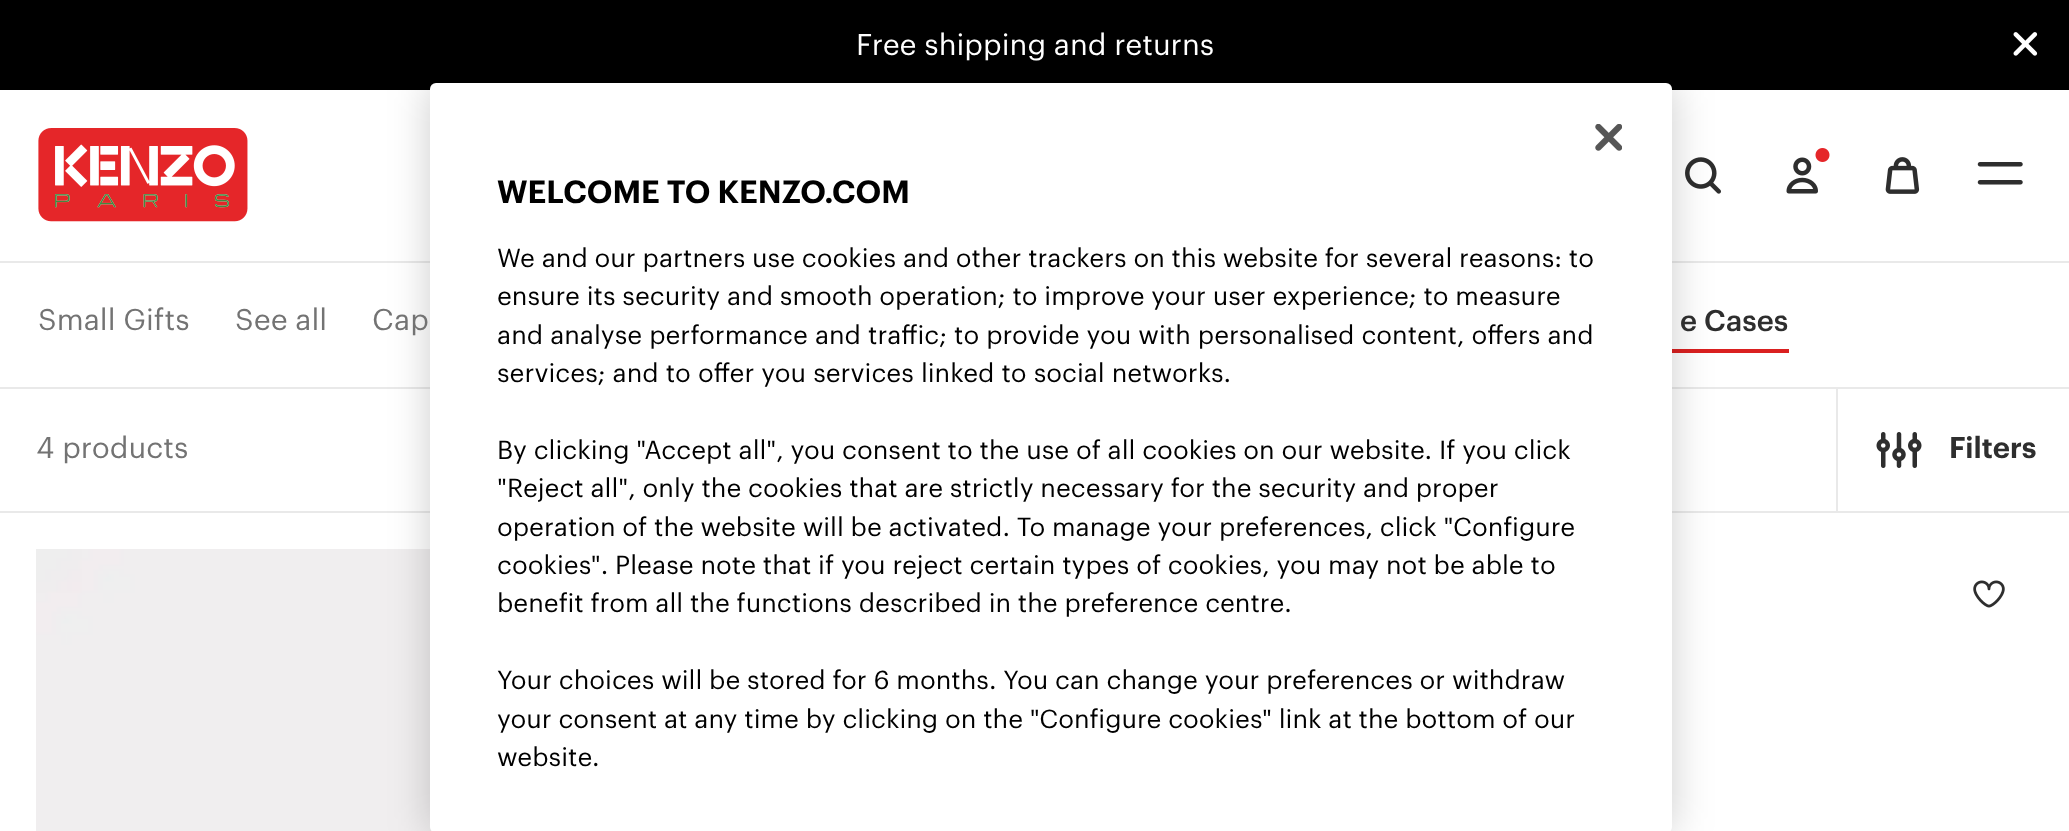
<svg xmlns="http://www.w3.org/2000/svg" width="2069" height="831">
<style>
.a{font:29.25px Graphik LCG;fill:#fff}
.b{font:29.25px Graphik LCG;fill:#737373}
.c{font:500 29.25px Graphik;fill:#2e2e2e}
.d{font:600 29.25px Graphik;fill:#2e2e2e}
.e{font:600 31.5px Graphik;fill:#000}
.f{font:25.6px Graphik LCG;fill:#000}
</style>
<rect width="100%" height="100%" fill="#fff"/>
<path fill="#000" d="M0 0h2069v90H0z"/>
<image href="1.png" x="2013" y="32" width="25" height="24"/>
<image href="2.png" x="38" y="128" width="210" height="94"/>
<image href="3.png" x="1685" y="157" width="36" height="37"/>
<image href="4.png" x="1786" y="148" width="44" height="46"/>
<image href="5.png" x="1885" y="157" width="35" height="37"/>
<image href="6.png" x="1977" y="162" width="46" height="23"/>
<path fill="#e9e9e9" d="M0 261h2069v2H0z"/>
<path fill="#e9e9e9" d="M0 511h2069v2H0z"/>
<path fill="#da2020" d="M1672 349h117v4H1672z"/>
<path fill="#e9e9e9" d="M0 387h2069v2H0z"/>
<path fill="#e9e9e9" d="M1836 389h2v122H1836z"/>
<image href="7.png" x="1876" y="432" width="46" height="36"/>
<image href="8.png" x="36" y="549" width="396" height="282"/>
<image href="9.png" x="1973" y="580" width="32" height="28"/>
<rect fill="#00000033" filter="blur(20px)" x="430" y="83" width="1242" height="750" rx="6"/>
<rect fill="#fff" x="430" y="83" width="1242" height="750" rx="6"/>
<image href="10.png" x="1595" y="124" width="27" height="27"/>
<text class="a" x="856" y="55">Free shipping and returns</text>
<text class="b" x="38" y="330">Small Gifts</text>
<text class="b" x="235" y="330">See all</text>
<text class="b" x="372" y="330">Cap</text>
<text class="c" x="1680" y="331">e Cases</text>
<text class="b" x="36" y="458">4 products</text>
<text class="d" x="1949" y="458">Filters</text>
<text class="e" x="497" y="203">WELCOME TO KENZO.COM</text>
<text class="f" x="497" y="267">We and our partners use cookies and other trackers on this website for several reasons: to</text>
<text class="f" x="497" y="305">ensure its security and smooth operation; to improve your user experience; to measure</text>
<text class="f" x="497" y="344" word-spacing="0.25">and analyse performance and traffic; to provide you with personalised content, offers and</text>
<text class="f" x="497" y="382" word-spacing="0.25">services; and to offer you services linked to social networks.</text>
<text class="f" x="497" y="459">By clicking "Accept all", you consent to the use of all cookies on our website. If you click</text>
<text class="f" x="497" y="497">"Reject all", only the cookies that are strictly necessary for the security and proper</text>
<text class="f" x="497" y="536">operation of the website will be activated. To manage your preferences, click "Configure</text>
<text class="f" x="497" y="574">cookies". Please note that if you reject certain types of cookies, you may not be able to</text>
<text class="f" x="497" y="612">benefit from all the functions described in the preference centre.</text>
<text class="f" x="497" y="689">Your choices will be stored for 6 months. You can change your preferences or withdraw</text>
<text class="f" x="497" y="728">your consent at any time by clicking on the "Configure cookies" link at the bottom of our</text>
<text class="f" x="497" y="766">website.</text>
</svg>
